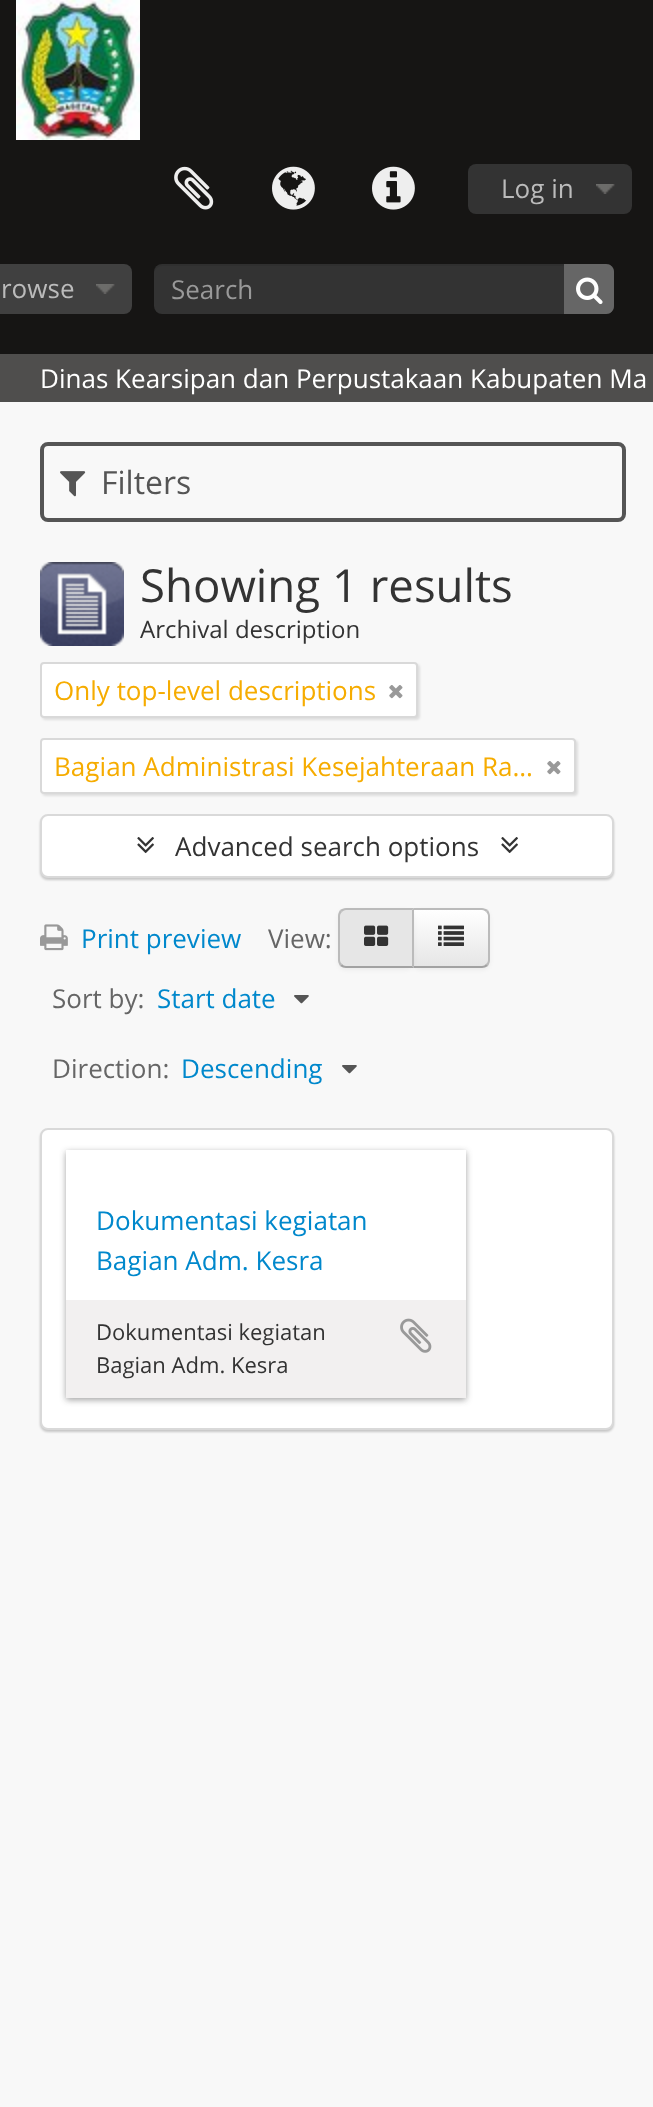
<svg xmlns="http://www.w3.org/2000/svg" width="653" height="2107">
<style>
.a{font:26px Open Sans;fill:#bbb}
.b{font:26px Open Sans;fill:#999}
.c{font:26px Open Sans;fill:#fff}
.d{font:32px Open Sans;fill:#555}
.e{font:45.5px Open Sans;fill:#333}
.f{font:24px Open Sans;fill:#333}
.g{font:26px Open Sans;fill:#f6ac00}
.h{font:26px Open Sans;fill:#333}
.i{font:26px Open Sans;fill:#08c}
.j{font:26px Open Sans;fill:#666}
.k{font:22px Open Sans;fill:#333}
</style>
<defs>
<clipPath id="clip1"><path d="M412 908h70c4.5 0 8 3.5 8 8v44c0 4.5-3.5 8-8 8h-70z"/></clipPath>
<linearGradient id="g1" gradientUnits="userSpaceOnUse" x1="451" y1="910" x2="451" y2="966"><stop offset="0" stop-color="#fff"/><stop offset="1" stop-color="#e6e6e6"/></linearGradient>
<clipPath id="clip2"><path d="M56 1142h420v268h-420zm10 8h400v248h-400z" clip-rule="evenodd"/></clipPath>
</defs>
<rect width="100%" height="100%" fill="#f8f8f8"/>
<path fill="#161514" d="M0 0h653v354H0z"/>
<image href="1.png" x="16" y="0" width="124" height="140"/>
<image href="2.png" x="174" y="166" width="40" height="44"/>
<image href="3.png" x="272" y="166" width="43" height="44"/>
<image href="4.png" x="372" y="166" width="43" height="44"/>
<rect fill="#333" x="468" y="164" width="164" height="50" rx="8"/>
<image href="5.png" x="596" y="184" width="19" height="10"/>
<rect fill="#404040" x="-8" y="264" width="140" height="50" rx="8"/>
<image href="6.png" x="96" y="284" width="19" height="10"/>
<rect fill="#333" x="154" y="264" width="460" height="50" rx="8"/>
<path fill="#00000012" d="M162 266h444c4 0 8 4 8 8c0-5-2-10-8-10h-444c-6 0-8 5-8 10c0-4 4-8 8-8z"/>
<path fill="#666" d="M564 264h42c4.5 0 8 3.5 8 8v34c0 4.5-3.5 8-8 8h-42z"/>
<image href="7.png" x="576" y="277" width="27" height="28"/>
<path fill="#4f4e4d" d="M0 354h653v48H0z"/>
<rect fill="none" stroke="#555" stroke-width="4" x="42" y="444" width="582" height="76" rx="6"/>
<image href="8.png" x="60" y="471" width="26" height="26"/>
<image href="9.png" x="40" y="562" width="84" height="84"/>
<rect fill="#0000001a" filter="blur(1px)" x="42" y="664" width="378" height="56" rx="4"/>
<rect fill="#fff" stroke="#d9d9d9" stroke-width="2" x="41" y="663" width="376" height="54" rx="3"/>
<image href="10.png" x="389" y="685" width="14" height="14"/>
<rect fill="#0000001a" filter="blur(1px)" x="42" y="740" width="536" height="56" rx="4"/>
<rect fill="#fff" stroke="#d9d9d9" stroke-width="2" x="41" y="739" width="534" height="54" rx="3"/>
<image href="10.png" x="547" y="761" width="14" height="14"/>
<rect fill="#00000033" filter="blur(1px)" x="40" y="816" width="574" height="64" rx="8"/>
<rect fill="#fff" stroke="#d9d9d9" stroke-width="2" x="41" y="815" width="572" height="62" rx="7"/>
<image href="11.png" x="137" y="837" width="17" height="17"/>
<image href="11.png" x="501" y="837" width="17" height="17"/>
<image href="12.png" x="40" y="924" width="28" height="27"/>
<rect fill="#0000000d" filter="blur(2px)" x="412" y="910" width="78" height="60" rx="8"/>
<g clip-path="url(#clip1)">
<path fill="url(#g1)" d="M414 910h76v56H414z"/>
</g>
<path fill="#bbb" d="M412 908l2 2h68c2 0 3 1 4 2l2-2c-2-1-4-2-6-2z"/>
<path fill="#bbb" d="M490 960v-44c0-2-1-4-2-6l-2 2c1 1 2 2 2 4v44c0 2-1 3-2 4l2 2c1-2 2-4 2-6z"/>
<path fill="#a2a2a2" d="M482 968c2 0 4-1 6-2l-2-2c-1 1-2 2-4 2h-68l-2 2z"/>
<rect fill="#0000000d" filter="blur(2px)" x="338" y="910" width="76" height="60" rx="8"/>
<path fill="#e6e6e6" d="M346 908h68v60h-68c-4.5 0-8-3.5-8-8v-44c0-4.5 3.5-8 8-8z"/>
<path fill="#bbb" d="M346 908c-2 0-4 1-6 2l2 2c1-1 2-2 4-2h66l2-2z"/>
<path fill="#bbb" d="M414 908l-2 2v56l2 2z"/>
<path fill="#a2a2a2" d="M414 968l-2-2h-66c-2 0-3-1-4-2l-2 2c2 1 4 2 6 2z"/>
<path fill="#bbb" d="M338 916v44c0 2 1 4 2 6l2-2c-1-1-2-2-2-4v-44c0-2 1-3 2-4l-2-2c-1 2-2 4-2 6z"/>
<image href="13.png" x="364" y="925" width="25" height="21"/>
<image href="14.png" x="438" y="925" width="26" height="21"/>
<image href="15.png" x="294" y="995" width="15" height="9"/>
<image href="15.png" x="342" y="1065" width="15" height="9"/>
<rect fill="#00000033" filter="blur(1px)" x="40" y="1130" width="574" height="302" rx="8"/>
<rect fill="#fff" stroke="#d9d9d9" stroke-width="2" x="41" y="1129" width="572" height="300" rx="7"/>
<g clip-path="url(#clip2)">
<path fill="#19191966" filter="blur(3px)" d="M66 1152h400v248H66z"/>
</g>
<path fill="#f2f0f0" d="M66 1300h400v98H66z"/>
<image href="16.png" x="400" y="1318" width="32" height="35"/>
<text class="a" x="501" y="198">Log in</text>
<text class="a" x="1" y="298">rowse</text>
<text class="b" x="171" y="299">Search</text>
<text class="c" x="40" y="388">Dinas Kearsipan dan Perpustakaan Kabupaten Ma</text>
<text class="d" x="101" y="494">Filters</text>
<text class="e" x="140" y="602">Showing 1 results</text>
<text class="f" x="140" y="638">Archival description</text>
<text class="g" x="54" y="700">Only top-level descriptions</text>
<text class="g" x="54" y="776">Bagian Administrasi Kesejahteraan Ra…</text>
<text class="h" x="175" y="856">Advanced search options</text>
<text class="i" x="81" y="948">Print preview</text>
<text class="j" x="268" y="948">View:</text>
<text class="j" x="52" y="1008">Sort by:</text>
<text class="i" x="157" y="1008">Start date</text>
<text class="j" x="52" y="1078">Direction:</text>
<text class="i" x="181" y="1078">Descending</text>
<text class="i" x="96" y="1230">Dokumentasi kegiatan</text>
<text class="i" x="96" y="1270">Bagian Adm. Kesra</text>
<text class="k" x="96" y="1340">Dokumentasi kegiatan</text>
<text class="k" x="96" y="1373">Bagian Adm. Kesra</text>
</svg>
